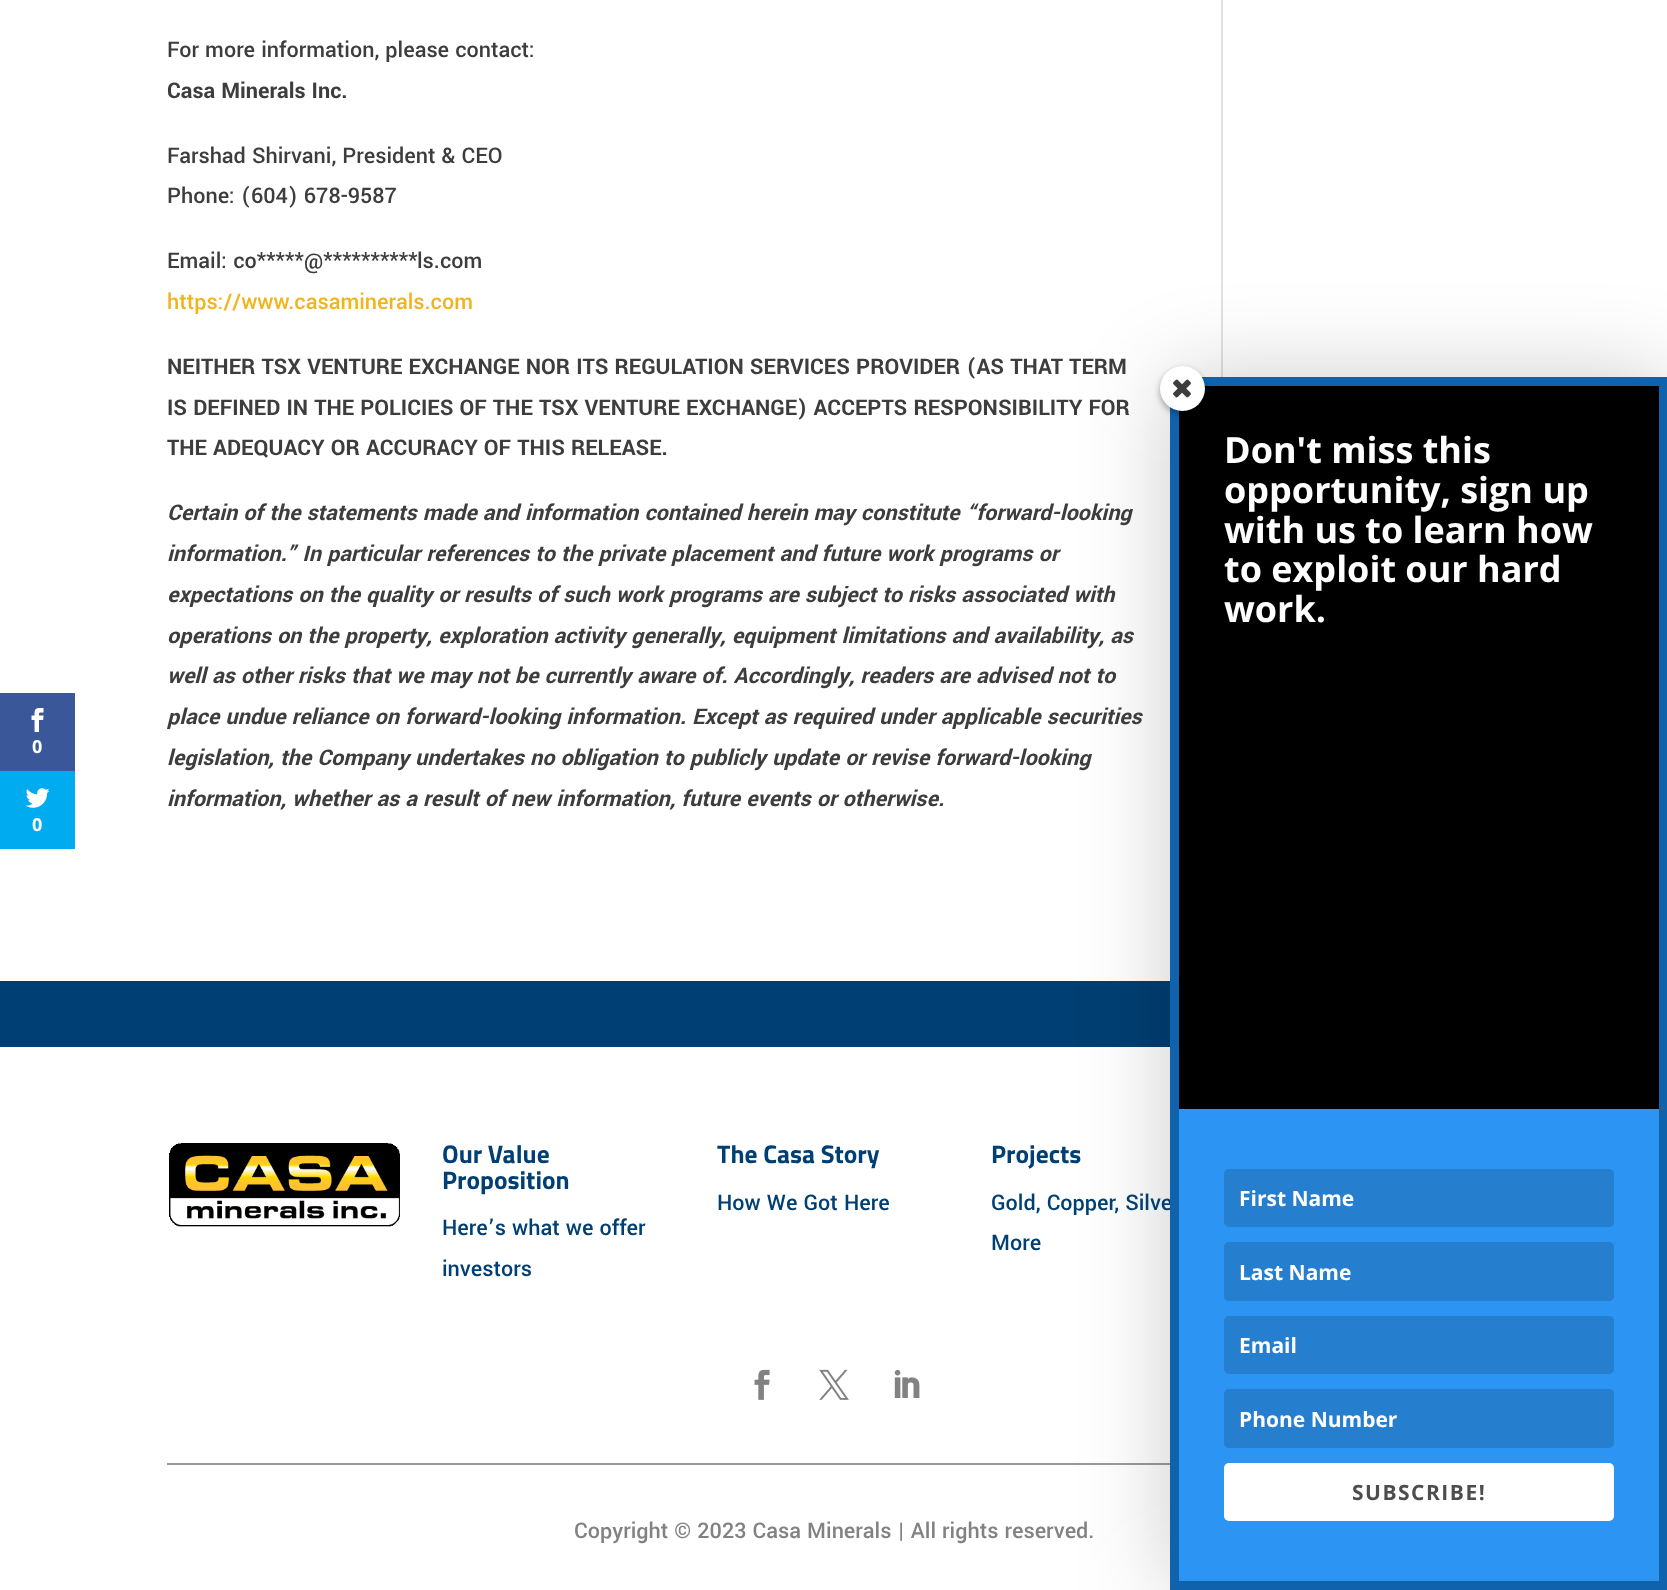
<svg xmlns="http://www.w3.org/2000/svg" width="1667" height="1590">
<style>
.a{font:bold 18px Open Sans;fill:#fff}
.b{font:500 24px Yantramanav;fill:#3d3d3d}
.c{font:bold 24px Yantramanav;fill:#3d3d3d}
.d{font:500 24px Yantramanav;fill:#f1b41c}
.e{font:italic bold 24px Yantramanav;fill:#3d3d3d}
.f{font:bold 25.5px Titillium Web;fill:#003f73}
.g{font:500 24px Yantramanav;fill:#003f73}
.h{font:500 24px Yantramanav;fill:#828282}
.i{font:bold 36px Open Sans;fill:#fff}
.j{font:bold 21px Open Sans;fill:#fff}
.k{font:bold 21px Open Sans;letter-spacing:1.5px;fill:#4d4d4d}
</style>
<rect width="100%" height="100%" fill="#fff"/>
<path fill="#3a579a" d="M0 693h75v78H0z"/>
<image href="1.png" x="31" y="708" width="13" height="24"/>
<path fill="#00abf0" d="M0 771h75v78H0z"/>
<image href="2.png" x="25" y="788" width="25" height="20"/>
<path fill="#e2e2e2" d="M1221 0h2v377H1221z"/>
<path fill="#003f73" d="M0 981h1170v66H0z"/>
<image href="3.png" x="169" y="1143" width="231" height="84"/>
<image href="4.png" x="754" y="1369" width="16" height="31"/>
<image href="5.png" x="819" y="1369" width="30" height="31"/>
<image href="6.png" x="894" y="1369" width="26" height="29"/>
<path fill="#9b9b9b" d="M167 1463h1003v2H167z"/>
<path fill="#00000033" filter="blur(45px)" d="M1170 377h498v1213H1170z"/>
<text class="a" x="32" y="753">0</text>
<text class="a" x="32" y="831">0</text>
<text class="b" x="167" y="57">For more information, please contact:</text>
<text class="c" x="167" y="98">Casa Minerals Inc.</text>
<text class="b" x="167" y="163">Farshad Shirvani, President &amp; CEO</text>
<text class="b" x="167" y="203">Phone: (604) 678-9587</text>
<text class="b" x="167" y="268">Email: co*****</text>
<text class="b" x="304" y="268">@**********</text>
<text class="b" x="417" y="268">ls.com</text>
<text class="d" x="167" y="309">https://www.casaminerals.com</text>
<text class="c" x="167" y="374">NEITHER TSX VENTURE EXCHANGE NOR ITS REGULATION SERVICES PROVIDER (AS THAT TERM</text>
<text class="c" x="167" y="415">IS DEFINED IN THE POLICIES OF THE TSX VENTURE EXCHANGE) ACCEPTS RESPONSIBILITY FOR</text>
<text class="c" x="167" y="455">THE ADEQUACY OR ACCURACY OF THIS RELEASE.</text>
<text class="e" x="167" y="520">Certain of the statements made and information contained herein may constitute “forward-looking</text>
<text class="e" x="167" y="561">information.” In particular references to the private placement and future work programs or</text>
<text class="e" x="167" y="602">expectations on the quality or results of such work programs are subject to risks associated with</text>
<text class="e" x="167" y="643">operations on the property, exploration activity generally, equipment limitations and availability, as</text>
<text class="e" x="167" y="683">well as other risks that we may not be currently aware of. Accordingly, readers are advised not to</text>
<text class="e" x="167" y="724">place undue reliance on forward-looking information. Except as required under applicable securities</text>
<text class="e" x="167" y="765">legislation, the Company undertakes no obligation to publicly update or revise forward-looking</text>
<text class="e" x="167" y="806">information, whether as a result of new information, future events or otherwise.</text>
<text class="f" x="442" y="1163">Our Value</text>
<text class="f" x="442" y="1189">Proposition</text>
<text class="g" x="442" y="1235">Here’s what we offer</text>
<text class="g" x="442" y="1276">investors</text>
<text class="f" x="717" y="1163">The Casa Story</text>
<text class="g" x="717" y="1210">How We Got Here</text>
<text class="f" x="991" y="1163">Projects</text>
<text class="g" x="991" y="1210">Gold, Copper, Silve</text>
<text class="g" x="991" y="1250">More</text>
<text class="h" x="574" y="1538">Copyright © 2023 Casa Minerals | All rights reserved.</text>
<path fill="none" stroke="#1062ad" stroke-width="9" d="M1174.5 381.5h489v1204H1174.5z"/>
<path fill="#000" d="M1179 386h480v723H1179z"/>
<rect fill="#00000057" filter="blur(3px)" x="1160" y="369" width="45" height="45" rx="22.5"/>
<circle fill="#fff" cx="1182.5" cy="388.5" r="22.5"/>
<image href="7.png" x="1173" y="379" width="18" height="19"/>
<text class="i" x="1224" y="463">Don't miss this</text>
<text class="i" x="1224" y="503">opportunity, sign up</text>
<text class="i" x="1224" y="543">with us to learn how</text>
<text class="i" x="1224" y="582">to exploit our hard</text>
<text class="i" x="1224" y="622">work.</text>
<path fill="#2c94f2" d="M1179 1109h480v472H1179z"/>
<rect fill="#257ece" x="1224" y="1169" width="390" height="58" rx="5"/>
<text class="j" x="1239" y="1206">First Name</text>
<rect fill="#257ece" x="1224" y="1242" width="390" height="59" rx="5"/>
<text class="j" x="1239" y="1280">Last Name</text>
<rect fill="#257ece" x="1224" y="1316" width="390" height="58" rx="5"/>
<text class="j" x="1239" y="1353">Email</text>
<rect fill="#257ece" x="1224" y="1389" width="390" height="59" rx="5"/>
<text class="j" x="1239" y="1427">Phone Number</text>
<rect fill="#fff" x="1224" y="1463" width="390" height="58" rx="5"/>
<text class="k" x="1352" y="1500">SUBSCRIBE!</text>
</svg>
